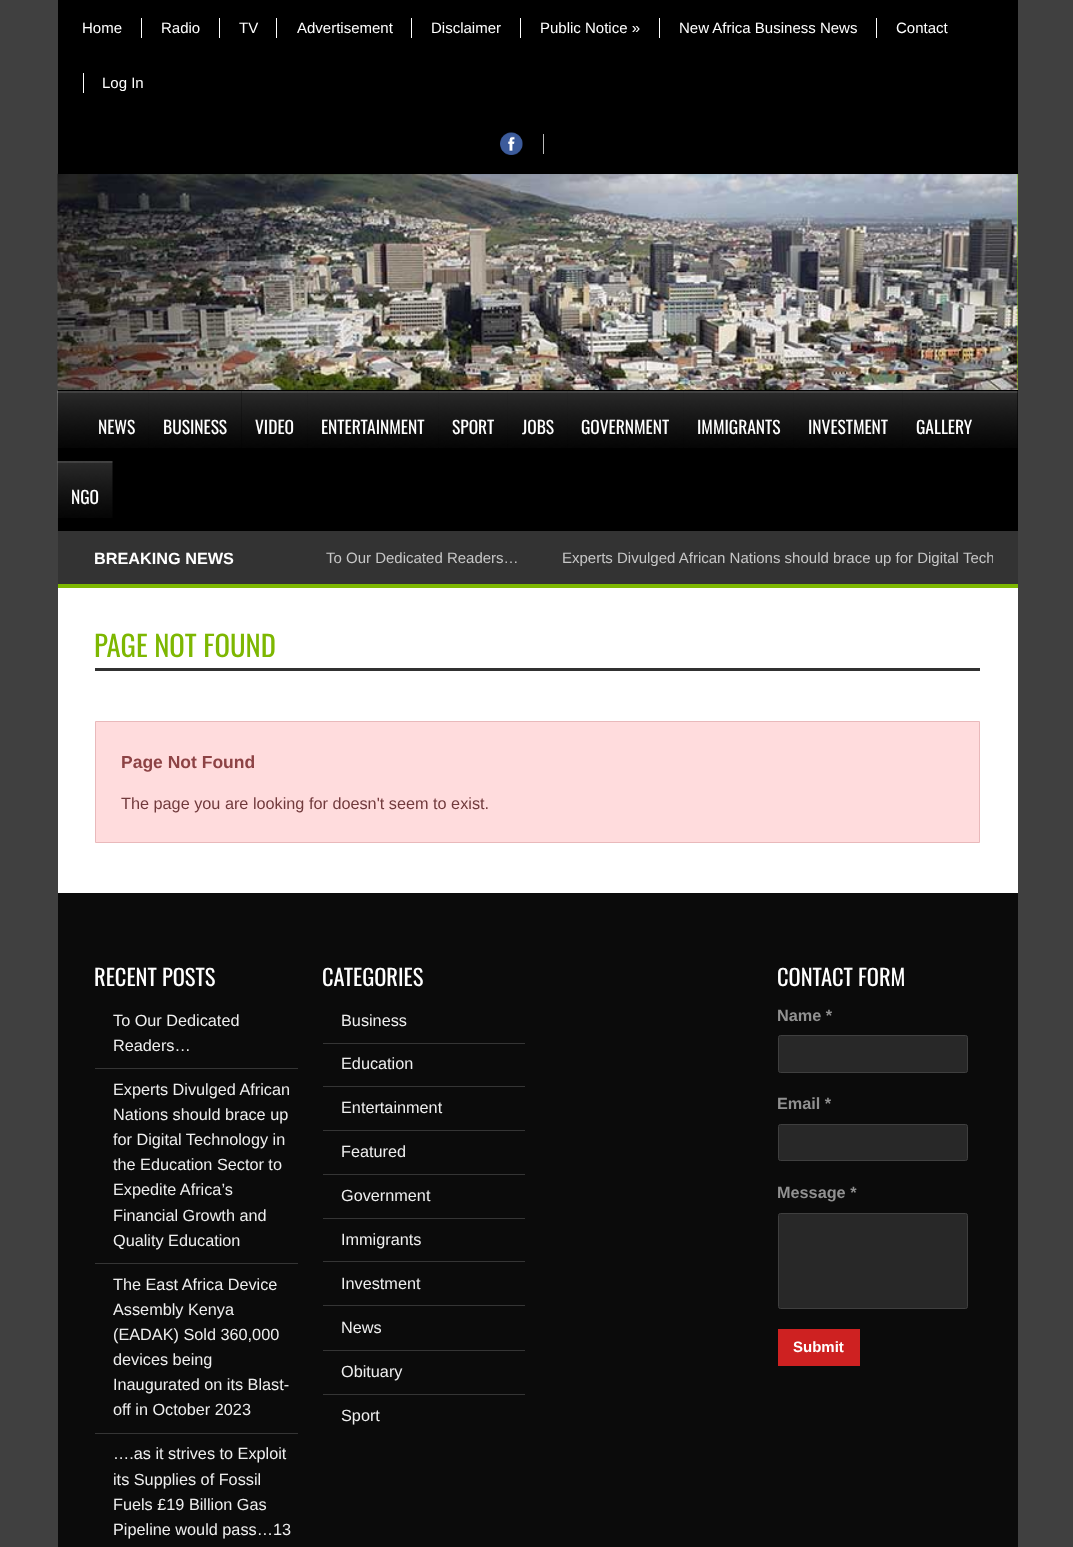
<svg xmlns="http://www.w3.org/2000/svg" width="1073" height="1547">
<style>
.a{font:15px Liberation Sans;fill:#fff}
.b{font:17.5px Oswald;fill:#fff}
.c{font:bold 16.25px Liberation Sans;fill:#fff}
.d{font:15px Liberation Sans;fill:#c7c7c7}
.e{font:28.75px Oswald;fill:#7db701}
.f{font:bold 17.5px Liberation Sans;fill:#8d4345}
.g{font:16.25px Liberation Sans;fill:#713a3c}
.h{font:22.5px Oswald;fill:#fff}
.i{font:16.25px Liberation Sans;fill:#efefef}
.j{font:bold 16.25px Liberation Sans;fill:#919191}
.k{font:bold 15px Liberation Sans;fill:#fff}
</style>
<defs>
<clipPath id="clip1"><path d="M309 531h684v53H309z"/></clipPath>
</defs>
<rect width="100%" height="100%" fill="#404040"/>
<path fill="#7db701" d="M1017 174h1v216H1017z"/>
<image href="2.png" x="57" y="173" width="961" height="217"/>
<path fill="#000" d="M58 0h960v174H58z"/>
<path fill="#fff" d="M141 18h1v20H141z"/>
<path fill="#fff" d="M219 18h1v20H219z"/>
<path fill="#fff" d="M276 18h1v20H276z"/>
<path fill="#fff" d="M411 18h1v20H411z"/>
<path fill="#fff" d="M520 18h1v20H520z"/>
<path fill="#fff" d="M659 18h1v20H659z"/>
<path fill="#fff" d="M876 18h1v20H876z"/>
<path fill="#fff" d="M83 73h1v20H83z"/>
<image href="1.png" x="500" y="132" width="23" height="23"/>
<path fill="#bababa" d="M543 134h1v20H543z"/>
<path fill="#000" d="M58 390h960v141H58z"/>
<image href="3.png" x="57" y="391" width="961" height="57"/>
<path fill="#000" d="M58 391h27v40H58z"/>
<image href="4.png" x="57" y="391" width="28" height="40"/>
<path fill="#000" d="M85 391h900v57H85z"/>
<image href="5.png" x="85" y="391" width="64" height="57"/>
<image href="6.png" x="148" y="391" width="93" height="57"/>
<image href="7.png" x="241" y="391" width="67" height="57"/>
<image href="8.png" x="307" y="391" width="132" height="57"/>
<image href="9.png" x="438" y="391" width="70" height="57"/>
<image href="10.png" x="507" y="391" width="61" height="57"/>
<image href="11.png" x="567" y="391" width="117" height="57"/>
<image href="12.png" x="683" y="391" width="111" height="57"/>
<image href="13.png" x="793" y="391" width="110" height="57"/>
<image href="14.png" x="902" y="391" width="83" height="57"/>
<image href="15.png" x="57" y="461" width="56" height="57"/>
<path fill="#333" d="M58 531h960v53H58z"/>
<path fill="#7db701" d="M58 584h960v4H58z"/>
<path fill="#fff" d="M58 588h960v305H58z"/>
<path fill="#313131" d="M95 668h885v3H95z"/>
<path fill="#ffdcdd" stroke="#e9b9bb" d="M95.5 721.5h884v121H95.5z"/>
<path fill="#0b0b0b" d="M58 893h960v654H58z"/>
<path fill="#353535" d="M95 1068h203v1H95z"/>
<path fill="#353535" d="M95 1263h203v1H95z"/>
<path fill="#353535" d="M95 1433h203v1H95z"/>
<path fill="#353535" d="M323 1043h202v1H323z"/>
<path fill="#353535" d="M323 1086h202v1H323z"/>
<path fill="#353535" d="M323 1130h202v1H323z"/>
<path fill="#353535" d="M323 1174h202v1H323z"/>
<path fill="#353535" d="M323 1218h202v1H323z"/>
<path fill="#353535" d="M323 1261h202v1H323z"/>
<path fill="#353535" d="M323 1305h202v1H323z"/>
<path fill="#353535" d="M323 1350h202v1H323z"/>
<path fill="#353535" d="M323 1394h202v1H323z"/>
<rect fill="#282828" stroke="#3f3f3f" x="778.5" y="1035.5" width="189" height="37" rx="2"/>
<rect fill="#282828" stroke="#3f3f3f" x="778.5" y="1124.5" width="189" height="36" rx="2"/>
<rect fill="#282828" stroke="#3f3f3f" x="778.5" y="1213.5" width="189" height="95" rx="2"/>
<path fill="#ce2121" d="M778 1329h82v37H778z"/>
<text class="a" x="82" y="33">Home</text>
<text class="a" x="161" y="33">Radio</text>
<text class="a" x="239" y="33">TV</text>
<text class="a" x="297" y="33">Advertisement</text>
<text class="a" x="431" y="33">Disclaimer</text>
<text class="a" x="540" y="33">Public Notice »</text>
<text class="a" x="679" y="33">New Africa Business News</text>
<text class="a" x="896" y="33">Contact</text>
<text class="a" x="102" y="88">Log In</text>
<text class="b" x="98" y="434">NEWS</text>
<text class="b" x="163" y="434">BUSINESS</text>
<text class="b" x="255" y="434">VIDEO</text>
<text class="b" x="321" y="434">ENTERTAINMENT</text>
<text class="b" x="452" y="434">SPORT</text>
<text class="b" x="522" y="434">JOBS</text>
<text class="b" x="581" y="434">GOVERNMENT</text>
<text class="b" x="697" y="434">IMMIGRANTS</text>
<text class="b" x="808" y="434">INVESTMENT</text>
<text class="b" x="916" y="434">GALLERY</text>
<text class="b" x="71" y="504">NGO</text>
<text class="c" x="94" y="564">BREAKING NEWS</text>
<text class="d" x="326" y="563">To Our Dedicated Readers…</text>
<text class="d" x="562" y="563">Experts Divulged African Nations should brace up for Digital</text>
<g clip-path="url(#clip1)">
<text class="d" x="963" y="563">Tech</text>
</g>
<text class="e" x="94" y="657">PAGE NOT FOUND</text>
<text class="f" x="121" y="768">Page Not Found</text>
<text class="g" x="121" y="809">The page you are looking for doesn't seem to exist.</text>
<text class="h" x="94" y="986">RECENT POSTS</text>
<text class="i" x="113" y="1026">To Our Dedicated</text>
<text class="i" x="113" y="1051">Readers…</text>
<text class="i" x="113" y="1095">Experts Divulged African</text>
<text class="i" x="113" y="1120">Nations should brace up</text>
<text class="i" x="113" y="1145">for Digital Technology in</text>
<text class="i" x="113" y="1170">the Education Sector to</text>
<text class="i" x="113" y="1195">Expedite Africa’s</text>
<text class="i" x="113" y="1221">Financial Growth and</text>
<text class="i" x="113" y="1246">Quality Education</text>
<text class="i" x="113" y="1290">The East Africa Device</text>
<text class="i" x="113" y="1315">Assembly Kenya</text>
<text class="i" x="113" y="1340">(EADAK) Sold 360,000</text>
<text class="i" x="113" y="1365">devices being</text>
<text class="i" x="113" y="1390">Inaugurated on its Blast-</text>
<text class="i" x="113" y="1415">off in October 2023</text>
<text class="i" x="113" y="1459">….as it strives to Exploit</text>
<text class="i" x="113" y="1485">its Supplies of Fossil</text>
<text class="i" x="113" y="1510">Fuels £19 Billion Gas</text>
<text class="i" x="113" y="1535">Pipeline would pass…13</text>
<text class="h" x="322" y="986">CATEGORIES</text>
<text class="i" x="341" y="1026">Business</text>
<text class="i" x="341" y="1069">Education</text>
<text class="i" x="341" y="1113">Entertainment</text>
<text class="i" x="341" y="1157">Featured</text>
<text class="i" x="341" y="1201">Government</text>
<text class="i" x="341" y="1245">Immigrants</text>
<text class="i" x="341" y="1289">Investment</text>
<text class="i" x="341" y="1333">News</text>
<text class="i" x="341" y="1377">Obituary</text>
<text class="i" x="341" y="1421">Sport</text>
<text class="h" x="777" y="986">CONTACT FORM</text>
<text class="j" x="777" y="1021">Name *</text>
<text class="j" x="777" y="1109">Email *</text>
<text class="j" x="777" y="1198">Message *</text>
<text class="k" x="793" y="1352">Submit</text>
</svg>
